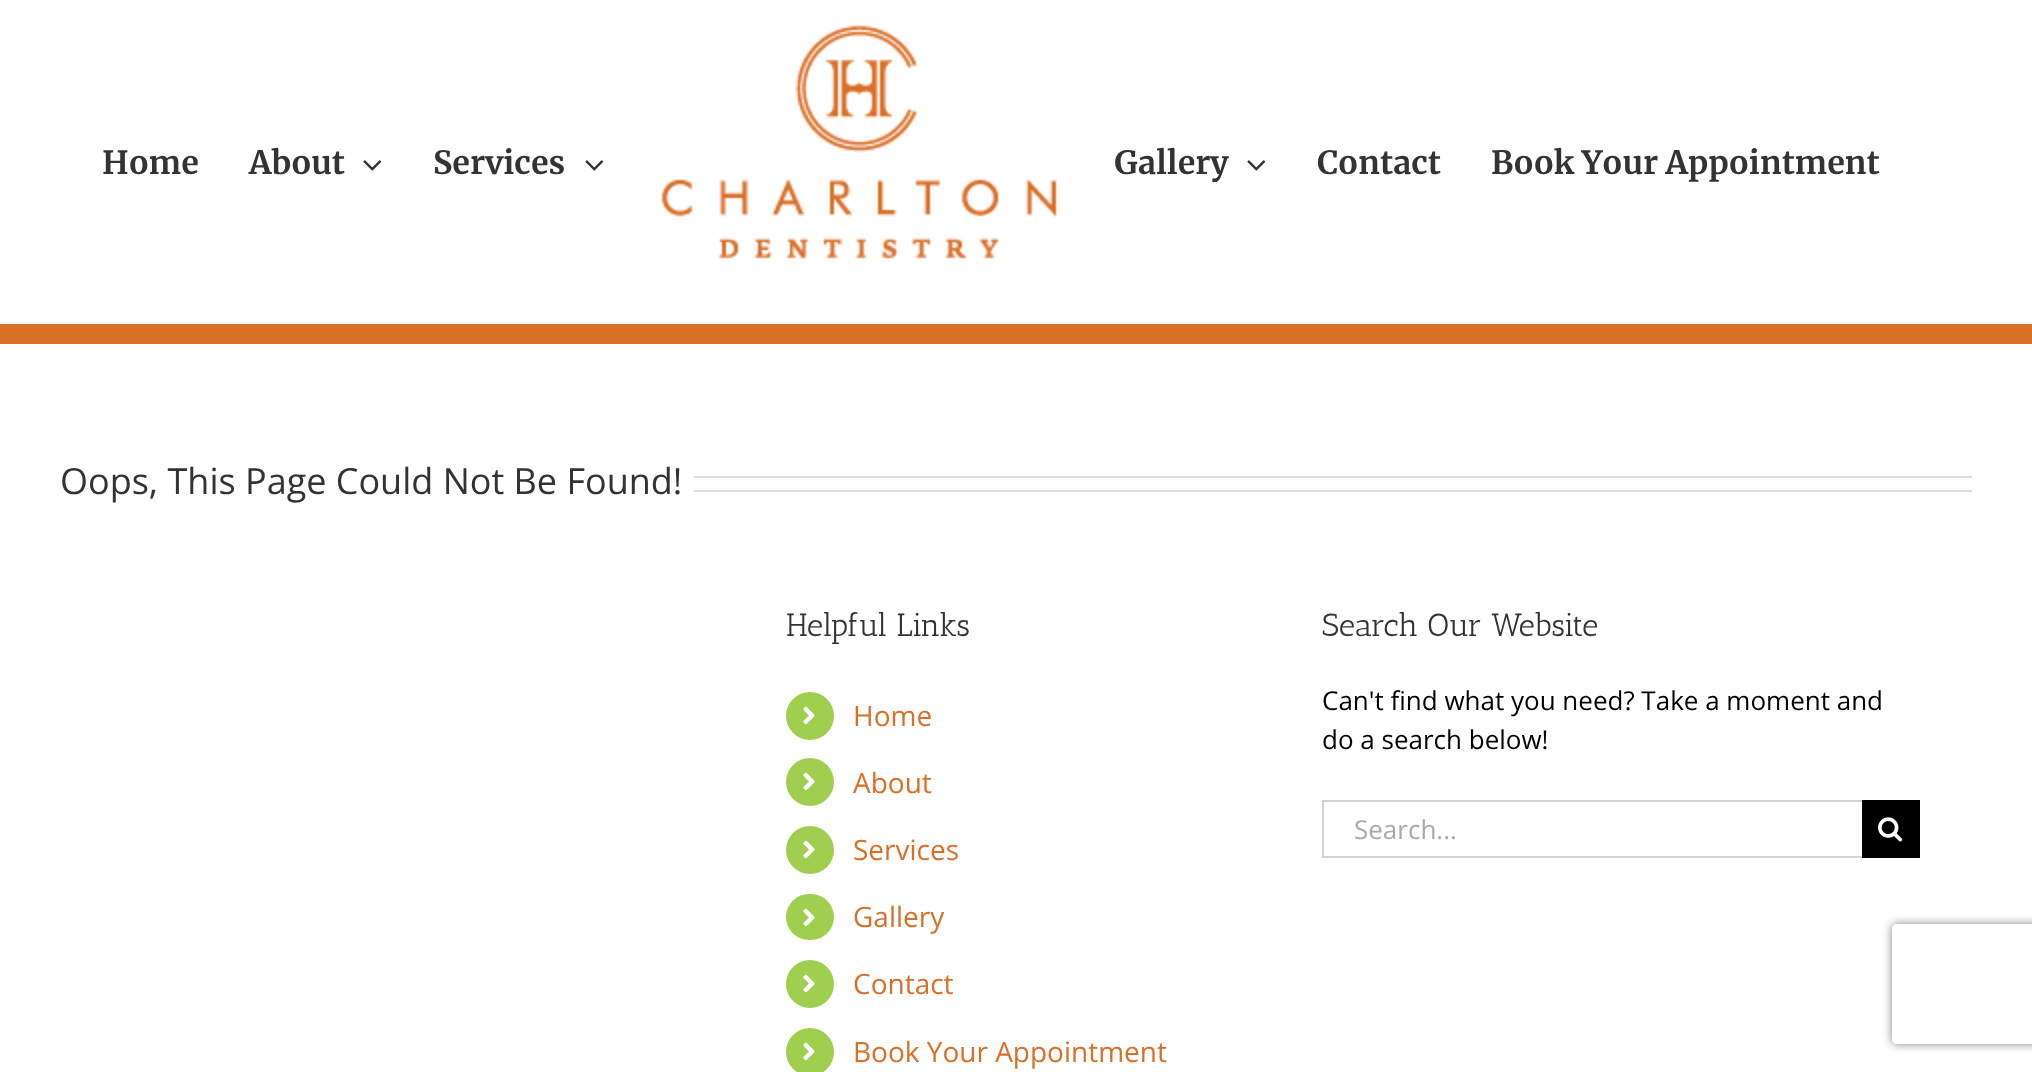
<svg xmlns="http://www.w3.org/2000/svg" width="2032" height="1072">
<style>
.a{font:bold 32px Merriweather;fill:#333}
.b{font:36px Open Sans;fill:#333}
.c{font:32px Antic Slab;fill:#333}
.d{font:28px Open Sans;fill:#da6f28}
.e{font:26px Open Sans;fill:#000}
.f{font:26px Open Sans;fill:#aaa9a9}
</style>
<defs>
<clipPath id="clip1"><path d="M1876 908h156v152h-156zm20 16h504c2 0 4 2 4 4v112c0 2-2 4-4 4h-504c-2 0-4-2-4-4v-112c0-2 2-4 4-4z" clip-rule="evenodd"/></clipPath>
</defs>
<rect width="100%" height="100%" fill="#fff"/>
<path fill="#da6f28" d="M0 324h2032v20H0z"/>
<image href="1.png" x="363" y="160" width="19" height="11"/>
<image href="1.png" x="585" y="160" width="19" height="11"/>
<image href="2.png" x="661" y="25" width="396" height="234"/>
<image href="1.png" x="1247" y="160" width="19" height="11"/>
<path fill="#e0dede" d="M694 476h1278v2H694z"/>
<path fill="#e0dede" d="M694 490h1278v2H694z"/>
<circle fill="#a0ce4e" cx="810" cy="716" r="24"/>
<image href="3.png" x="803" y="706" width="12" height="19"/>
<circle fill="#a0ce4e" cx="810" cy="782" r="24"/>
<image href="3.png" x="803" y="772" width="12" height="19"/>
<circle fill="#a0ce4e" cx="810" cy="850" r="24"/>
<image href="3.png" x="803" y="840" width="12" height="19"/>
<rect fill="#a0ce4e" x="786" y="894" width="48" height="46" rx="23"/>
<image href="3.png" x="803" y="908" width="12" height="19"/>
<circle fill="#a0ce4e" cx="810" cy="984" r="24"/>
<image href="3.png" x="803" y="974" width="12" height="19"/>
<circle fill="#a0ce4e" cx="810" cy="1052" r="24"/>
<image href="3.png" x="803" y="1042" width="12" height="19"/>
<path fill="#d2d2d2" d="M1322 800h540v2H1322z"/>
<path fill="#d2d2d2" d="M1322 856h540v2H1322z"/>
<path fill="#d2d2d2" d="M1322 800h2v58H1322z"/>
<path fill="#000" d="M1862 800h58v58H1862z"/>
<image href="4.png" x="1878" y="817" width="25" height="25"/>
<g clip-path="url(#clip1)">
<rect fill="#808080" filter="blur(5px)" x="1892" y="924" width="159" height="120" rx="4"/>
</g>
<text class="a" x="102" y="174">Home</text>
<text class="a" x="249" y="174">About</text>
<text class="a" x="433" y="174">Services</text>
<text class="a" x="1114" y="174">Gallery</text>
<text class="a" x="1317" y="174">Contact</text>
<text class="a" x="1491" y="174">Book Your Appointment</text>
<text class="b" x="60" y="494">Oops, This Page Could Not Be Found!</text>
<text class="c" x="786" y="636">Helpful Links</text>
<text class="d" x="853" y="726">Home</text>
<text class="d" x="853" y="793">About</text>
<text class="d" x="853" y="860">Services</text>
<text class="d" x="853" y="927">Gallery</text>
<text class="d" x="853" y="994">Contact</text>
<text class="d" x="853" y="1062">Book Your Appointment</text>
<text class="c" x="1322" y="636">Search Our Website</text>
<text class="e" x="1322" y="710">Can't find what you need? Take a moment and</text>
<text class="e" x="1322" y="749">do a search below!</text>
<text class="f" x="1354" y="839">Search...</text>
</svg>
